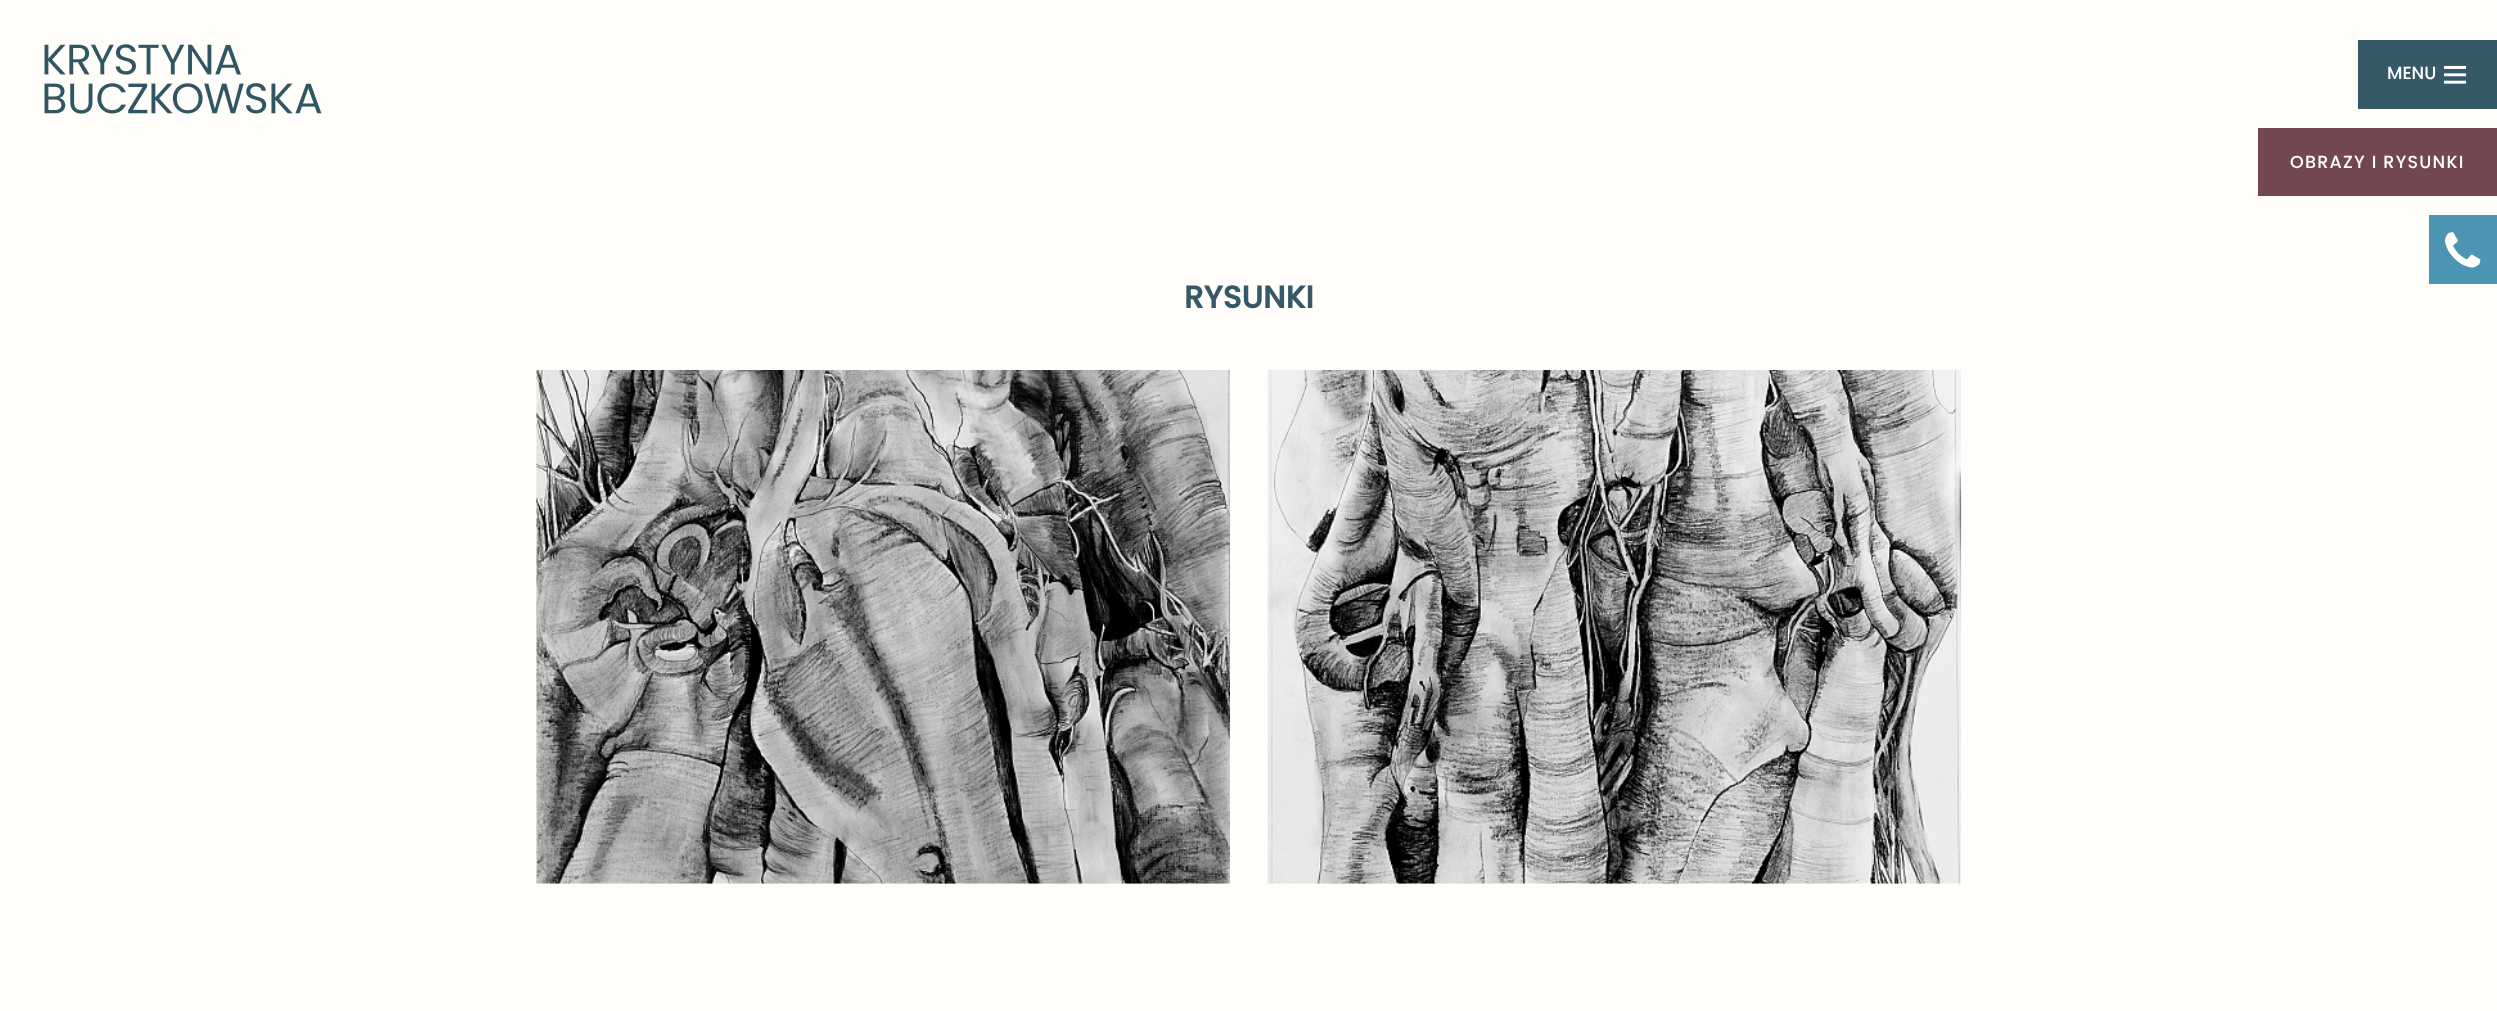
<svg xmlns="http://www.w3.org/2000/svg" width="2497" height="1011">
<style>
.a{font:500 17.5px Poppins;fill:#fff}
.b{font:500 17.5px Poppins;letter-spacing:1.25px;fill:#fff}
.c{font:bold 31.25px Poppins;fill:#365967}
</style>
<rect width="100%" height="100%" fill="#fffefb"/>
<image href="1.png" x="44" y="44" width="278" height="70"/>
<path fill="#365967" d="M2358 40h139v69H2358z"/>
<image href="2.png" x="2443" y="65" width="24" height="19"/>
<path fill="#734750" d="M2258 128h239v68H2258z"/>
<path fill="#4b95b3" d="M2429 215h68v69H2429z"/>
<image href="3.png" x="2445" y="232" width="36" height="36"/>
<image href="4.png" x="536" y="370" width="694" height="514"/>
<image href="5.png" x="1267" y="370" width="695" height="514"/>
<text class="a" x="2387" y="79">MENU</text>
<text class="b" x="2290" y="168">OBRAZY I RYSUNKI</text>
<text class="c" x="1184" y="308">RYSUNKI</text>
</svg>
